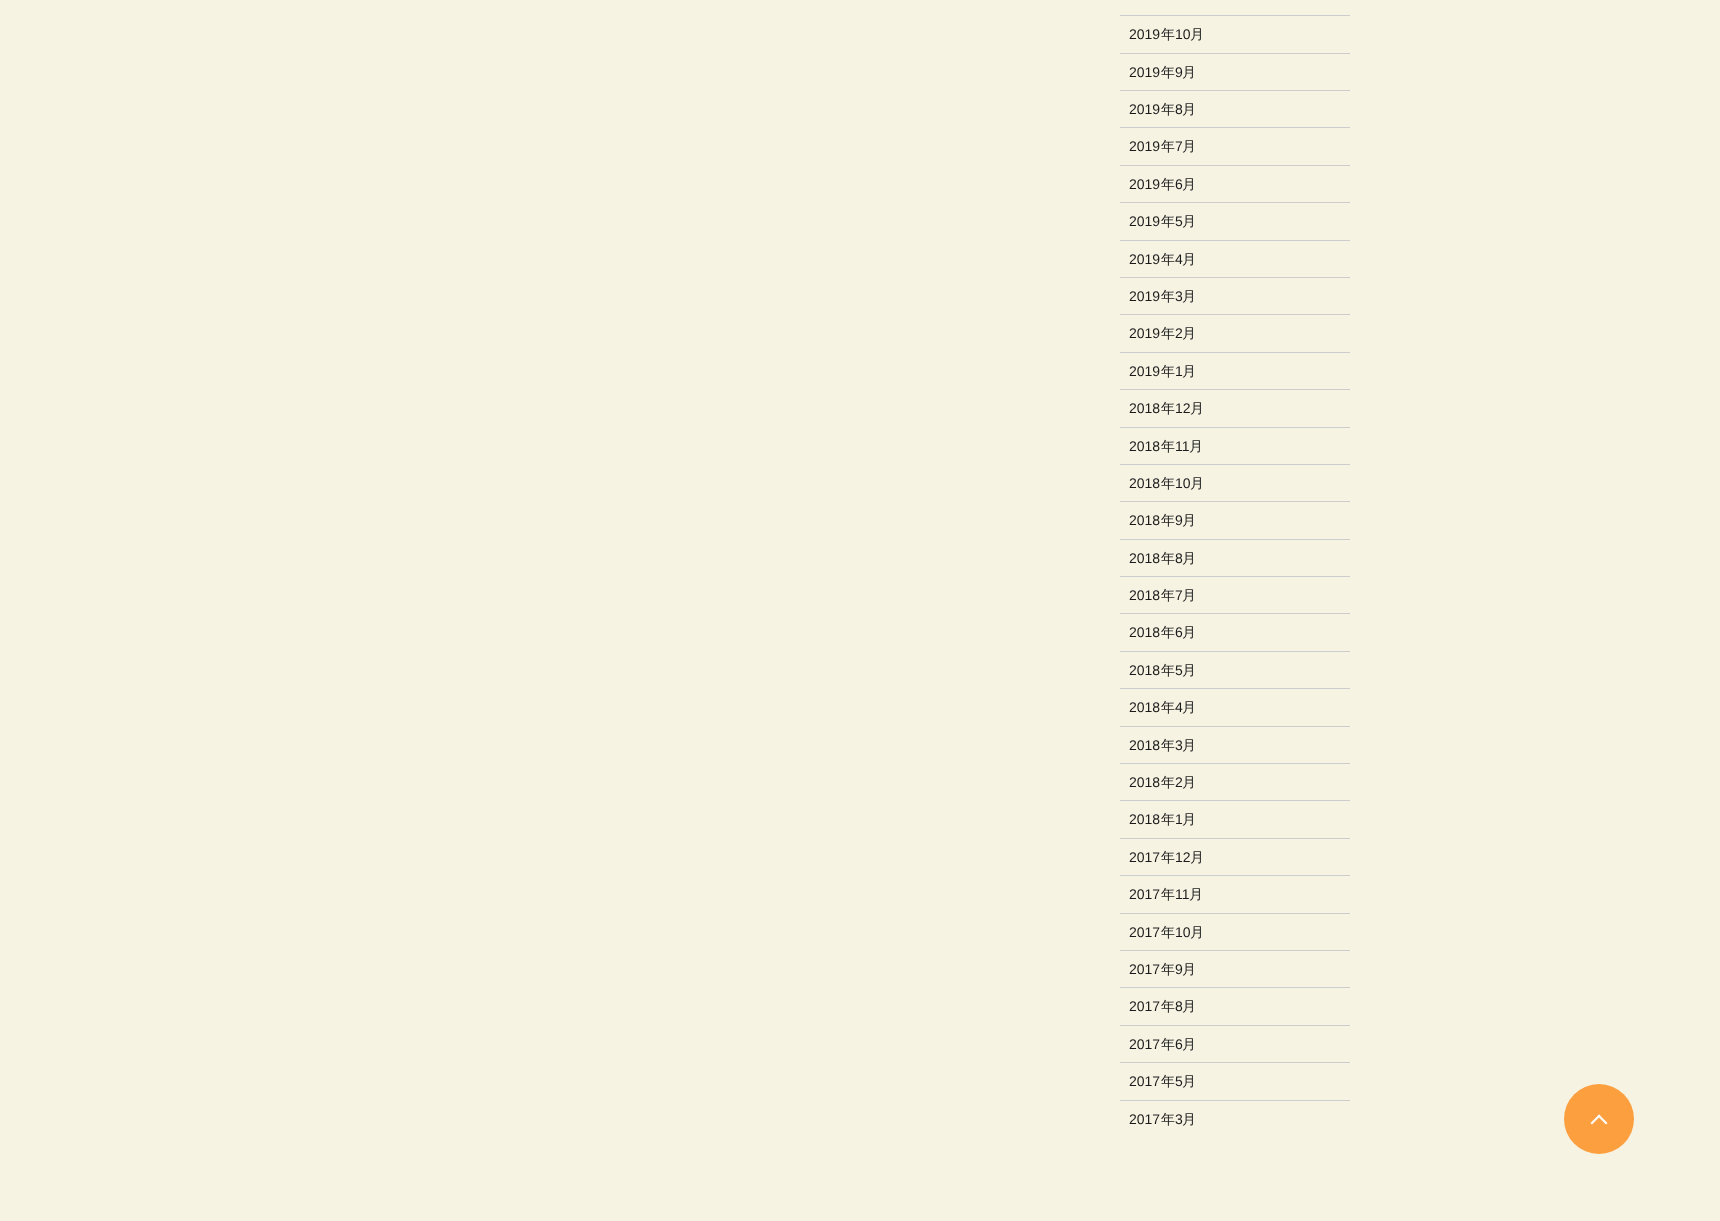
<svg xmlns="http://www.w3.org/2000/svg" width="1720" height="1221">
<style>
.a{font:14px Liberation Sans;fill:#1b1b1b}
.b{font:500 14px WenQuanYi Zen Hei;fill:#1b1b1b}
</style>
<rect width="100%" height="100%" fill="#f6f3e3"/>
<path fill="#ccc" d="M1120 15h230v1H1120z"/>
<path fill="#ccc" d="M1120 53h230v1H1120z"/>
<path fill="#ccc" d="M1120 90h230v1H1120z"/>
<path fill="#ccc" d="M1120 127h230v1H1120z"/>
<path fill="#ccc" d="M1120 165h230v1H1120z"/>
<path fill="#ccc" d="M1120 202h230v1H1120z"/>
<path fill="#ccc" d="M1120 240h230v1H1120z"/>
<path fill="#ccc" d="M1120 277h230v1H1120z"/>
<path fill="#ccc" d="M1120 314h230v1H1120z"/>
<path fill="#ccc" d="M1120 352h230v1H1120z"/>
<path fill="#ccc" d="M1120 389h230v1H1120z"/>
<path fill="#ccc" d="M1120 427h230v1H1120z"/>
<path fill="#ccc" d="M1120 464h230v1H1120z"/>
<path fill="#ccc" d="M1120 501h230v1H1120z"/>
<path fill="#ccc" d="M1120 539h230v1H1120z"/>
<path fill="#ccc" d="M1120 576h230v1H1120z"/>
<path fill="#ccc" d="M1120 613h230v1H1120z"/>
<path fill="#ccc" d="M1120 651h230v1H1120z"/>
<path fill="#ccc" d="M1120 688h230v1H1120z"/>
<path fill="#ccc" d="M1120 726h230v1H1120z"/>
<path fill="#ccc" d="M1120 763h230v1H1120z"/>
<path fill="#ccc" d="M1120 800h230v1H1120z"/>
<path fill="#ccc" d="M1120 838h230v1H1120z"/>
<path fill="#ccc" d="M1120 875h230v1H1120z"/>
<path fill="#ccc" d="M1120 913h230v1H1120z"/>
<path fill="#ccc" d="M1120 950h230v1H1120z"/>
<path fill="#ccc" d="M1120 987h230v1H1120z"/>
<path fill="#ccc" d="M1120 1025h230v1H1120z"/>
<path fill="#ccc" d="M1120 1062h230v1H1120z"/>
<path fill="#ccc" d="M1120 1100h230v1H1120z"/>
<circle fill="#fc9f3f" cx="1599" cy="1119" r="35"/>
<path fill="#fff" d="M1599 1114.5l8.5 8.5l-1.5 1.5l-8.5-8.5z"/>
<path fill="#fff" d="M1599 1114.5l1.5 1.5l-8.5 8.5l-1.5-1.5z"/>
<text class="a" x="1129" y="39">2019</text>
<text class="b" x="1161" y="39">年</text>
<text class="a" x="1175" y="39">10</text>
<text class="b" x="1190" y="39">月</text>
<text class="a" x="1129" y="77">2019</text>
<text class="b" x="1161" y="77">年</text>
<text class="a" x="1175" y="77">9</text>
<text class="b" x="1182" y="77">月</text>
<text class="a" x="1129" y="114">2019</text>
<text class="b" x="1161" y="114">年</text>
<text class="a" x="1175" y="114">8</text>
<text class="b" x="1182" y="114">月</text>
<text class="a" x="1129" y="151">2019</text>
<text class="b" x="1161" y="151">年</text>
<text class="a" x="1175" y="151">7</text>
<text class="b" x="1182" y="151">月</text>
<text class="a" x="1129" y="189">2019</text>
<text class="b" x="1161" y="189">年</text>
<text class="a" x="1175" y="189">6</text>
<text class="b" x="1182" y="189">月</text>
<text class="a" x="1129" y="226">2019</text>
<text class="b" x="1161" y="226">年</text>
<text class="a" x="1175" y="226">5</text>
<text class="b" x="1182" y="226">月</text>
<text class="a" x="1129" y="264">2019</text>
<text class="b" x="1161" y="264">年</text>
<text class="a" x="1175" y="264">4</text>
<text class="b" x="1182" y="264">月</text>
<text class="a" x="1129" y="301">2019</text>
<text class="b" x="1161" y="301">年</text>
<text class="a" x="1175" y="301">3</text>
<text class="b" x="1182" y="301">月</text>
<text class="a" x="1129" y="338">2019</text>
<text class="b" x="1161" y="338">年</text>
<text class="a" x="1175" y="338">2</text>
<text class="b" x="1182" y="338">月</text>
<text class="a" x="1129" y="376">2019</text>
<text class="b" x="1161" y="376">年</text>
<text class="a" x="1175" y="376">1</text>
<text class="b" x="1182" y="376">月</text>
<text class="a" x="1129" y="413">2018</text>
<text class="b" x="1161" y="413">年</text>
<text class="a" x="1175" y="413">12</text>
<text class="b" x="1190" y="413">月</text>
<text class="a" x="1129" y="451">2018</text>
<text class="b" x="1161" y="451">年</text>
<text class="a" x="1175" y="451">11</text>
<text class="b" x="1189" y="451">月</text>
<text class="a" x="1129" y="488">2018</text>
<text class="b" x="1161" y="488">年</text>
<text class="a" x="1175" y="488">10</text>
<text class="b" x="1190" y="488">月</text>
<text class="a" x="1129" y="525">2018</text>
<text class="b" x="1161" y="525">年</text>
<text class="a" x="1175" y="525">9</text>
<text class="b" x="1182" y="525">月</text>
<text class="a" x="1129" y="563">2018</text>
<text class="b" x="1161" y="563">年</text>
<text class="a" x="1175" y="563">8</text>
<text class="b" x="1182" y="563">月</text>
<text class="a" x="1129" y="600">2018</text>
<text class="b" x="1161" y="600">年</text>
<text class="a" x="1175" y="600">7</text>
<text class="b" x="1182" y="600">月</text>
<text class="a" x="1129" y="637">2018</text>
<text class="b" x="1161" y="637">年</text>
<text class="a" x="1175" y="637">6</text>
<text class="b" x="1182" y="637">月</text>
<text class="a" x="1129" y="675">2018</text>
<text class="b" x="1161" y="675">年</text>
<text class="a" x="1175" y="675">5</text>
<text class="b" x="1182" y="675">月</text>
<text class="a" x="1129" y="712">2018</text>
<text class="b" x="1161" y="712">年</text>
<text class="a" x="1175" y="712">4</text>
<text class="b" x="1182" y="712">月</text>
<text class="a" x="1129" y="750">2018</text>
<text class="b" x="1161" y="750">年</text>
<text class="a" x="1175" y="750">3</text>
<text class="b" x="1182" y="750">月</text>
<text class="a" x="1129" y="787">2018</text>
<text class="b" x="1161" y="787">年</text>
<text class="a" x="1175" y="787">2</text>
<text class="b" x="1182" y="787">月</text>
<text class="a" x="1129" y="824">2018</text>
<text class="b" x="1161" y="824">年</text>
<text class="a" x="1175" y="824">1</text>
<text class="b" x="1182" y="824">月</text>
<text class="a" x="1129" y="862">2017</text>
<text class="b" x="1161" y="862">年</text>
<text class="a" x="1175" y="862">12</text>
<text class="b" x="1190" y="862">月</text>
<text class="a" x="1129" y="899">2017</text>
<text class="b" x="1161" y="899">年</text>
<text class="a" x="1175" y="899">11</text>
<text class="b" x="1189" y="899">月</text>
<text class="a" x="1129" y="937">2017</text>
<text class="b" x="1161" y="937">年</text>
<text class="a" x="1175" y="937">10</text>
<text class="b" x="1190" y="937">月</text>
<text class="a" x="1129" y="974">2017</text>
<text class="b" x="1161" y="974">年</text>
<text class="a" x="1175" y="974">9</text>
<text class="b" x="1182" y="974">月</text>
<text class="a" x="1129" y="1011">2017</text>
<text class="b" x="1161" y="1011">年</text>
<text class="a" x="1175" y="1011">8</text>
<text class="b" x="1182" y="1011">月</text>
<text class="a" x="1129" y="1049">2017</text>
<text class="b" x="1161" y="1049">年</text>
<text class="a" x="1175" y="1049">6</text>
<text class="b" x="1182" y="1049">月</text>
<text class="a" x="1129" y="1086">2017</text>
<text class="b" x="1161" y="1086">年</text>
<text class="a" x="1175" y="1086">5</text>
<text class="b" x="1182" y="1086">月</text>
<text class="a" x="1129" y="1124">2017</text>
<text class="b" x="1161" y="1124">年</text>
<text class="a" x="1175" y="1124">3</text>
<text class="b" x="1182" y="1124">月</text>
</svg>
